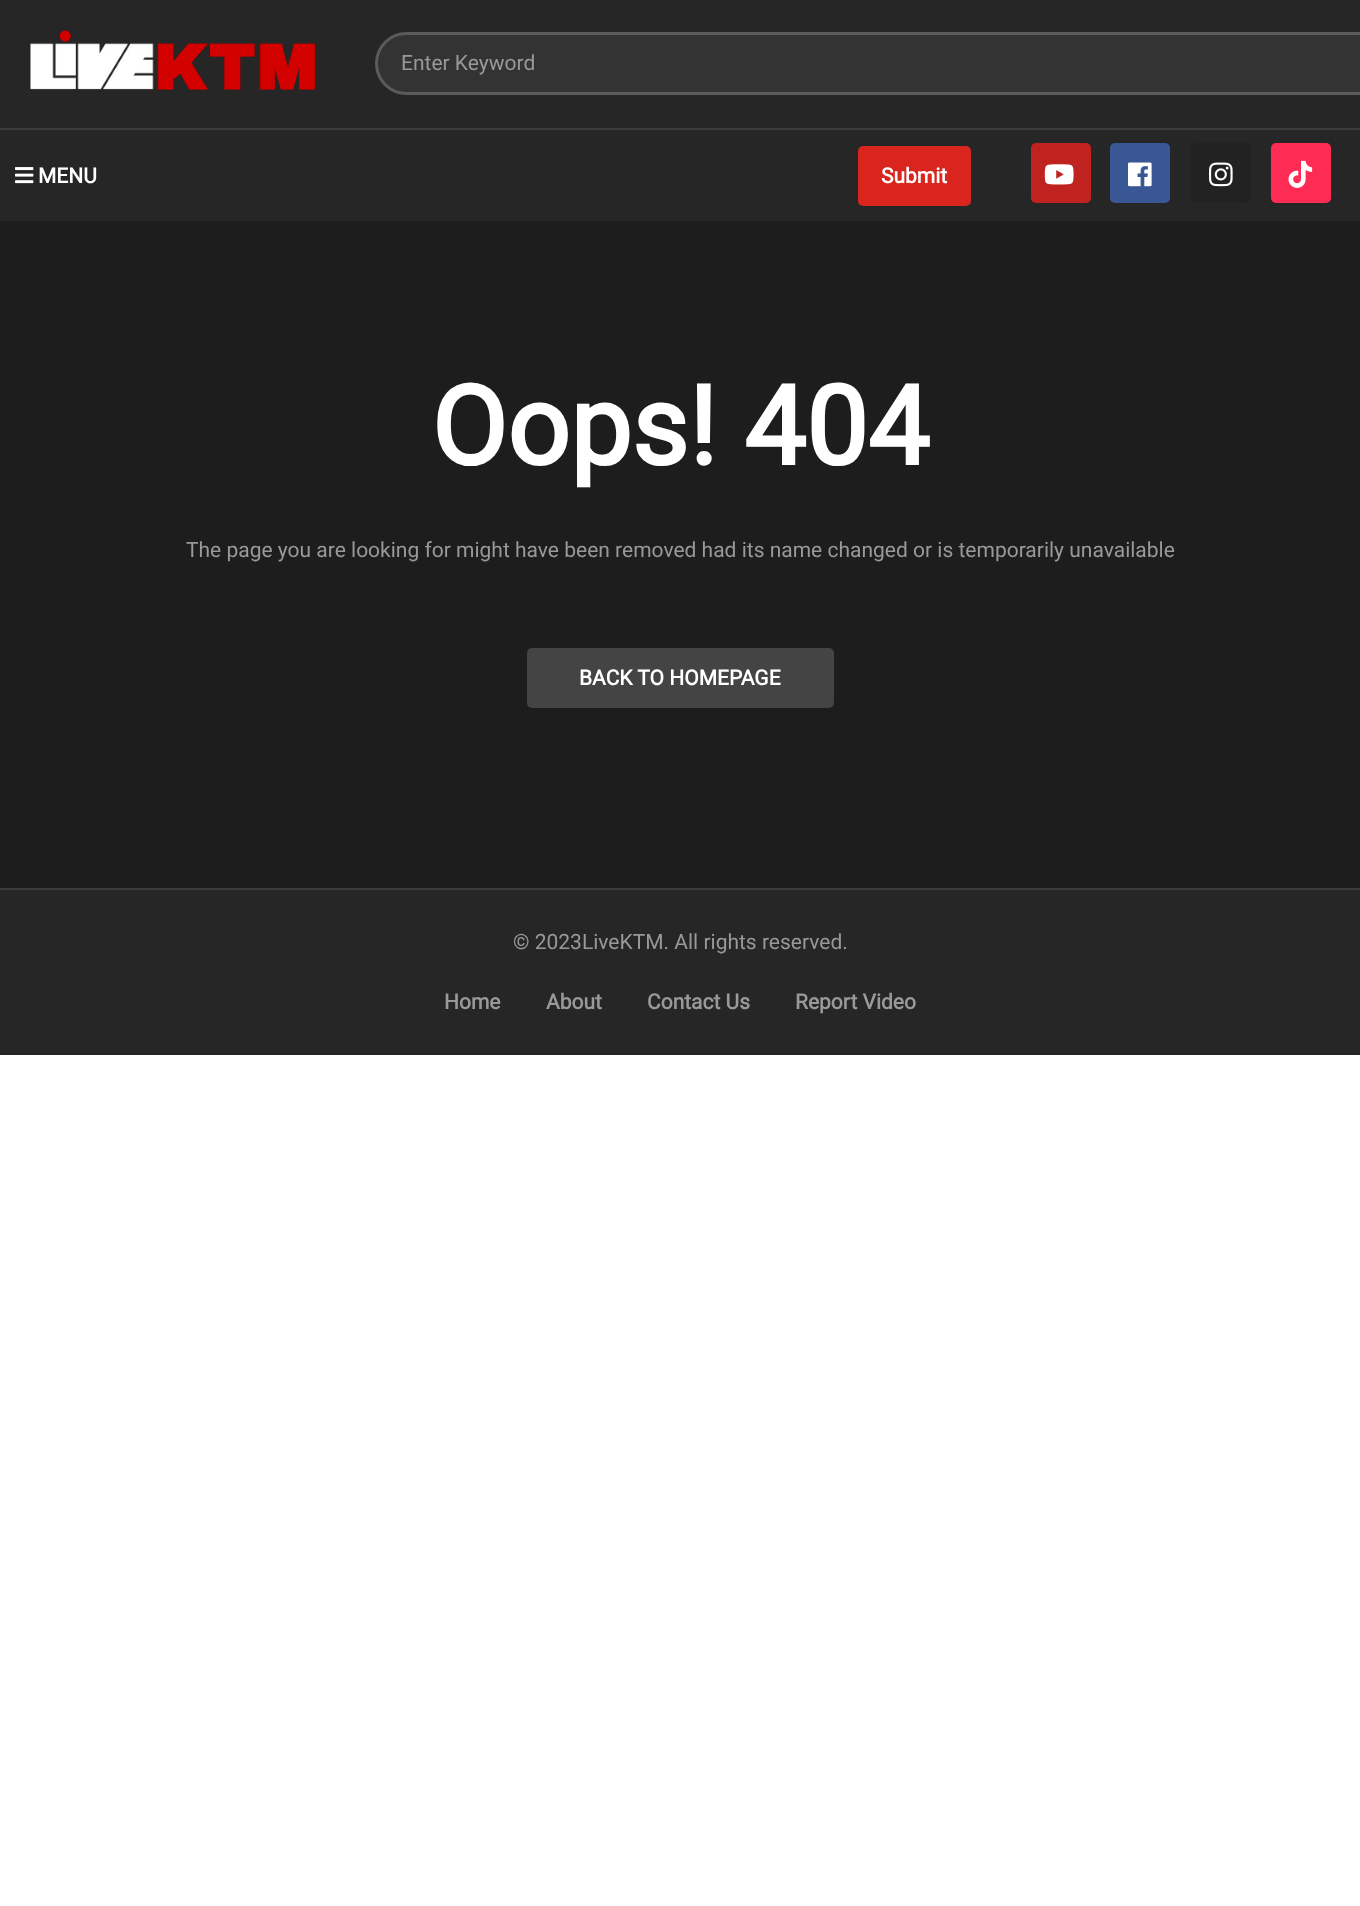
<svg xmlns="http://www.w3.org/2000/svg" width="1360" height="1906">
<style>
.a{font:21px Roboto;fill:#999}
.b{font:bold 21px Roboto;fill:#fff}
.c{font:bold 110px Roboto;fill:#fff}
.d{font:bold 21px Roboto;fill:#999}
</style>
<rect width="100%" height="100%" fill="#fff"/>
<path fill="#262626" d="M0 0h1360v221H0z"/>
<image href="1.png" x="30" y="30" width="285" height="60"/>
<path fill="#333" d="M406.5 32h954.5v63h-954.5c-17.5 0-31.5-14-31.5-31.5c0-17.5 14-31.5 31.5-31.5z"/>
<rect fill="none" stroke="#ffffff33" stroke-width="3" x="376.5" y="33.5" width="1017" height="60" rx="30"/>
<path fill="#3c3c3c" d="M0 128h1360v2H0z"/>
<image href="2.png" x="15" y="167" width="19" height="17"/>
<rect fill="#d9251d" x="858" y="146" width="113" height="60" rx="5"/>
<rect fill="#bf221f" x="1031" y="143" width="60" height="60" rx="5"/>
<image href="3.png" x="1044" y="164" width="30" height="21"/>
<rect fill="#3a5795" x="1110" y="143" width="60" height="60" rx="5"/>
<image href="4.png" x="1128" y="162" width="24" height="25"/>
<rect fill="#222" x="1191" y="143" width="60" height="60" rx="5"/>
<image href="5.png" x="1209" y="162" width="24" height="25"/>
<rect fill="#fe2b54" x="1271" y="143" width="60" height="60" rx="5"/>
<image href="6.png" x="1288" y="160" width="25" height="28"/>
<path fill="#1d1d1d" d="M0 221h1360v667H0z"/>
<rect fill="#444" x="527" y="648" width="307" height="60" rx="5"/>
<path fill="#262626" d="M0 890h1360v165H0z"/>
<path fill="#3c3c3c" d="M0 888h1360v2H0z"/>
<text class="a" x="401" y="70">Enter Keyword</text>
<text class="b" x="38" y="183">MENU</text>
<text class="b" x="881" y="183">Submit</text>
<text class="c" x="431" y="465">Oops! 404</text>
<text class="a" x="186" y="557">The page you are looking for might have been removed had its name changed or is temporarily unavailable</text>
<text class="b" x="579" y="685">BACK TO HOMEPAGE</text>
<text class="a" x="513" y="949">© 2023LiveKTM. All rights reserved.</text>
<text class="d" x="444" y="1009">Home</text>
<text class="d" x="546" y="1009">About</text>
<text class="d" x="647" y="1009">Contact Us</text>
<text class="d" x="795" y="1009">Report Video</text>
</svg>
